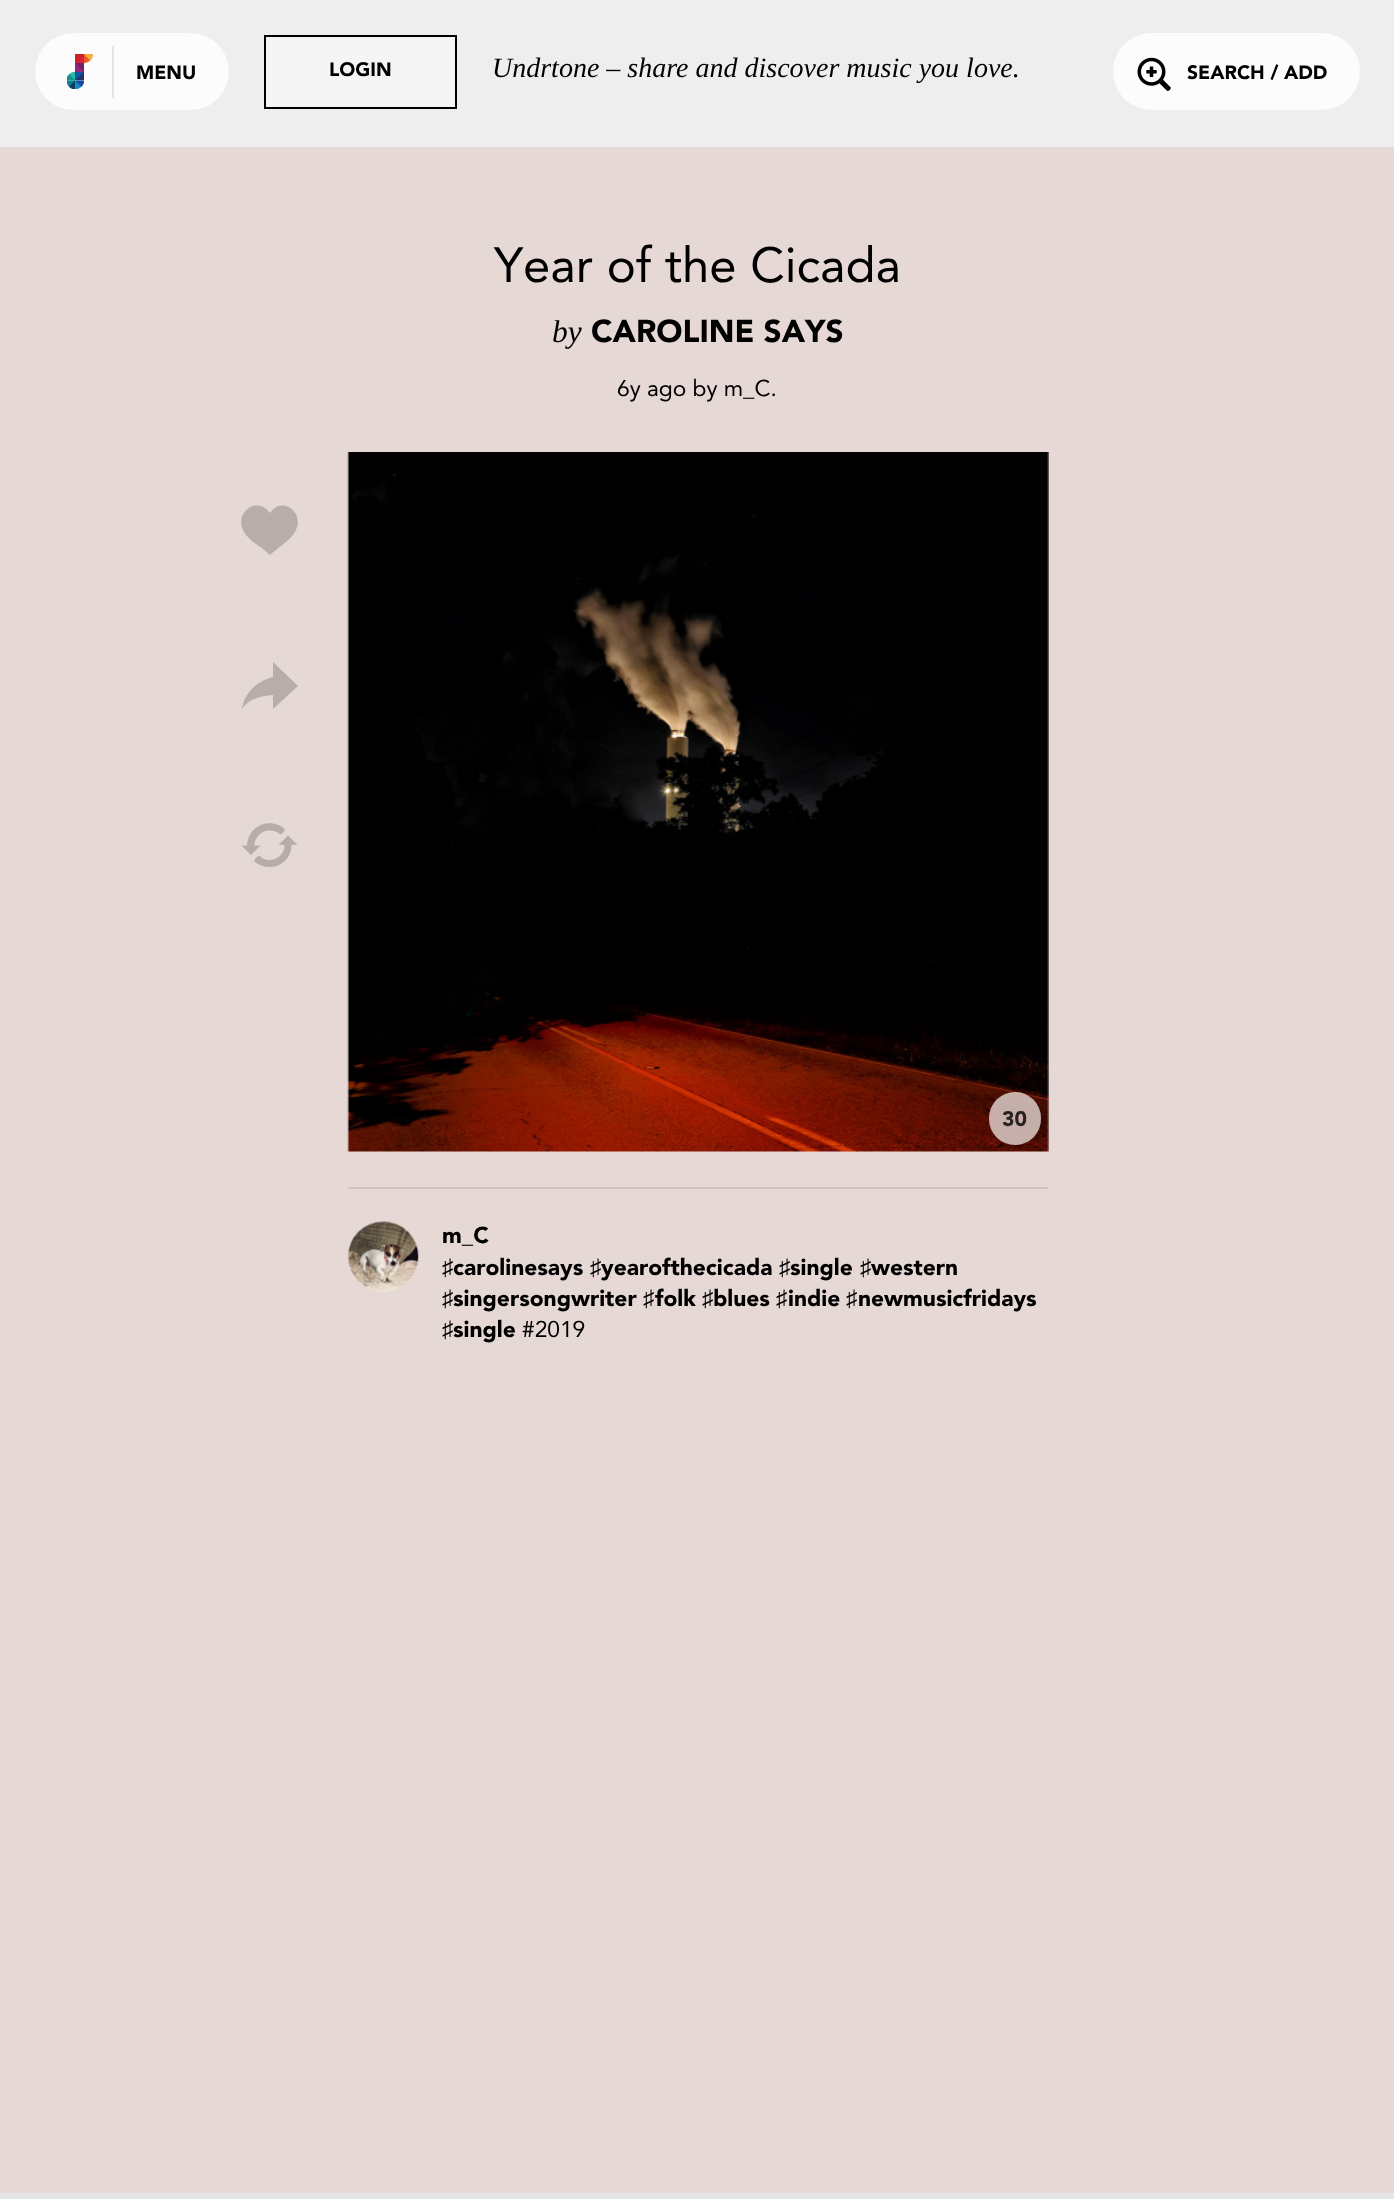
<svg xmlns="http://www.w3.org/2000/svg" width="1394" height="2199">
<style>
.a{font:900 19.25px Avenir;fill:#000}
.b{font:italic 28px Liberation Serif;fill:#000}
.c{font:49px Avenir;fill:#000}
.d{font:italic 31.5px Liberation Serif;fill:#000}
.e{font:900 31.5px Avenir;fill:#000}
.f{font:22.75px Avenir;fill:#000}
.g{font:900 21px Avenir;fill:#282322}
.h{font:900 22.75px Avenir;fill:#000}
.i{font:22.75px Liberation Serif;fill:#000}
</style>
<rect width="100%" height="100%" fill="#e6d8d5"/>
<path fill="#eee" d="M0 0h1394v147H0z"/>
<rect fill="#fcfcfc" x="35" y="33" width="194" height="77" rx="38.5"/>
<image href="1.png" x="67" y="54" width="26" height="35"/>
<path fill="#e3e3e3" d="M112 46h2v52H112z"/>
<path fill="#f5f5f5" stroke="#000" stroke-width="2" d="M265 36h191v72H265z"/>
<rect fill="#fcfcfc" x="1113" y="33" width="247" height="77" rx="38.5"/>
<image href="2.png" x="1137" y="57" width="34" height="34"/>
<path fill="#b8adaa" d="M270 513c-13-18-37 0-26 19c6 10 18 15 26 23c8-8 19-13 25-23c11-19-13-37-25-19z"/>
<path fill="#b8adaa" d="M298 686l-25-24v15c-16 4-29 16-31 32c6-10 19-13 31-14v14z"/>
<image href="3.png" x="241" y="823" width="57" height="44"/>
<image href="4.png" x="347" y="452" width="702" height="700"/>
<rect fill="#e6d8d5cc" x="989" y="1092" width="52" height="53" rx="26"/>
<path fill="#cfc2c0" d="M348 1187h700v2H348z"/>
<circle fill="#ece5db" cx="383" cy="1257" r="35"/>
<image href="5.png" x="348" y="1221" width="71" height="70"/>
<path fill="#e5e5e5" d="M0 2193h1394v6H0z"/>
<text class="a" x="136" y="79">MENU</text>
<text class="a" x="329" y="76">LOGIN</text>
<text class="b" x="492" y="77">Undrtone – share and discover music you love.</text>
<text class="a" x="1187" y="79">SEARCH / ADD</text>
<text class="c" x="494" y="282">Year of the Cicada</text>
<text class="d" x="552" y="342">by</text>
<text class="e" x="591" y="342">CAROLINE SAYS</text>
<text class="f" x="617" y="396">6y ago by m_C.</text>
<text class="g" x="1002" y="1126">30</text>
<text class="h" x="442" y="1243">m_C</text>
<text class="i" x="442" y="1275">♯</text>
<text class="h" x="453" y="1275">carolinesays</text>
<text class="i" x="590" y="1275">♯</text>
<text class="h" x="601" y="1275">yearofthecicada</text>
<text class="i" x="779" y="1275">♯</text>
<text class="h" x="790" y="1275">single</text>
<text class="i" x="860" y="1275">♯</text>
<text class="h" x="871" y="1275">western</text>
<text class="i" x="442" y="1306">♯</text>
<text class="h" x="453" y="1306">singersongwriter</text>
<text class="i" x="643" y="1306">♯</text>
<text class="h" x="655" y="1306">folk</text>
<text class="i" x="702" y="1306">♯</text>
<text class="h" x="713" y="1306">blues</text>
<text class="i" x="776" y="1306">♯</text>
<text class="h" x="788" y="1306">indie</text>
<text class="i" x="846" y="1306">♯</text>
<text class="h" x="858" y="1306">newmusicfridays</text>
<text class="i" x="442" y="1337">♯</text>
<text class="h" x="453" y="1337">single</text>
<text class="f" x="522" y="1337">#2019</text>
</svg>
